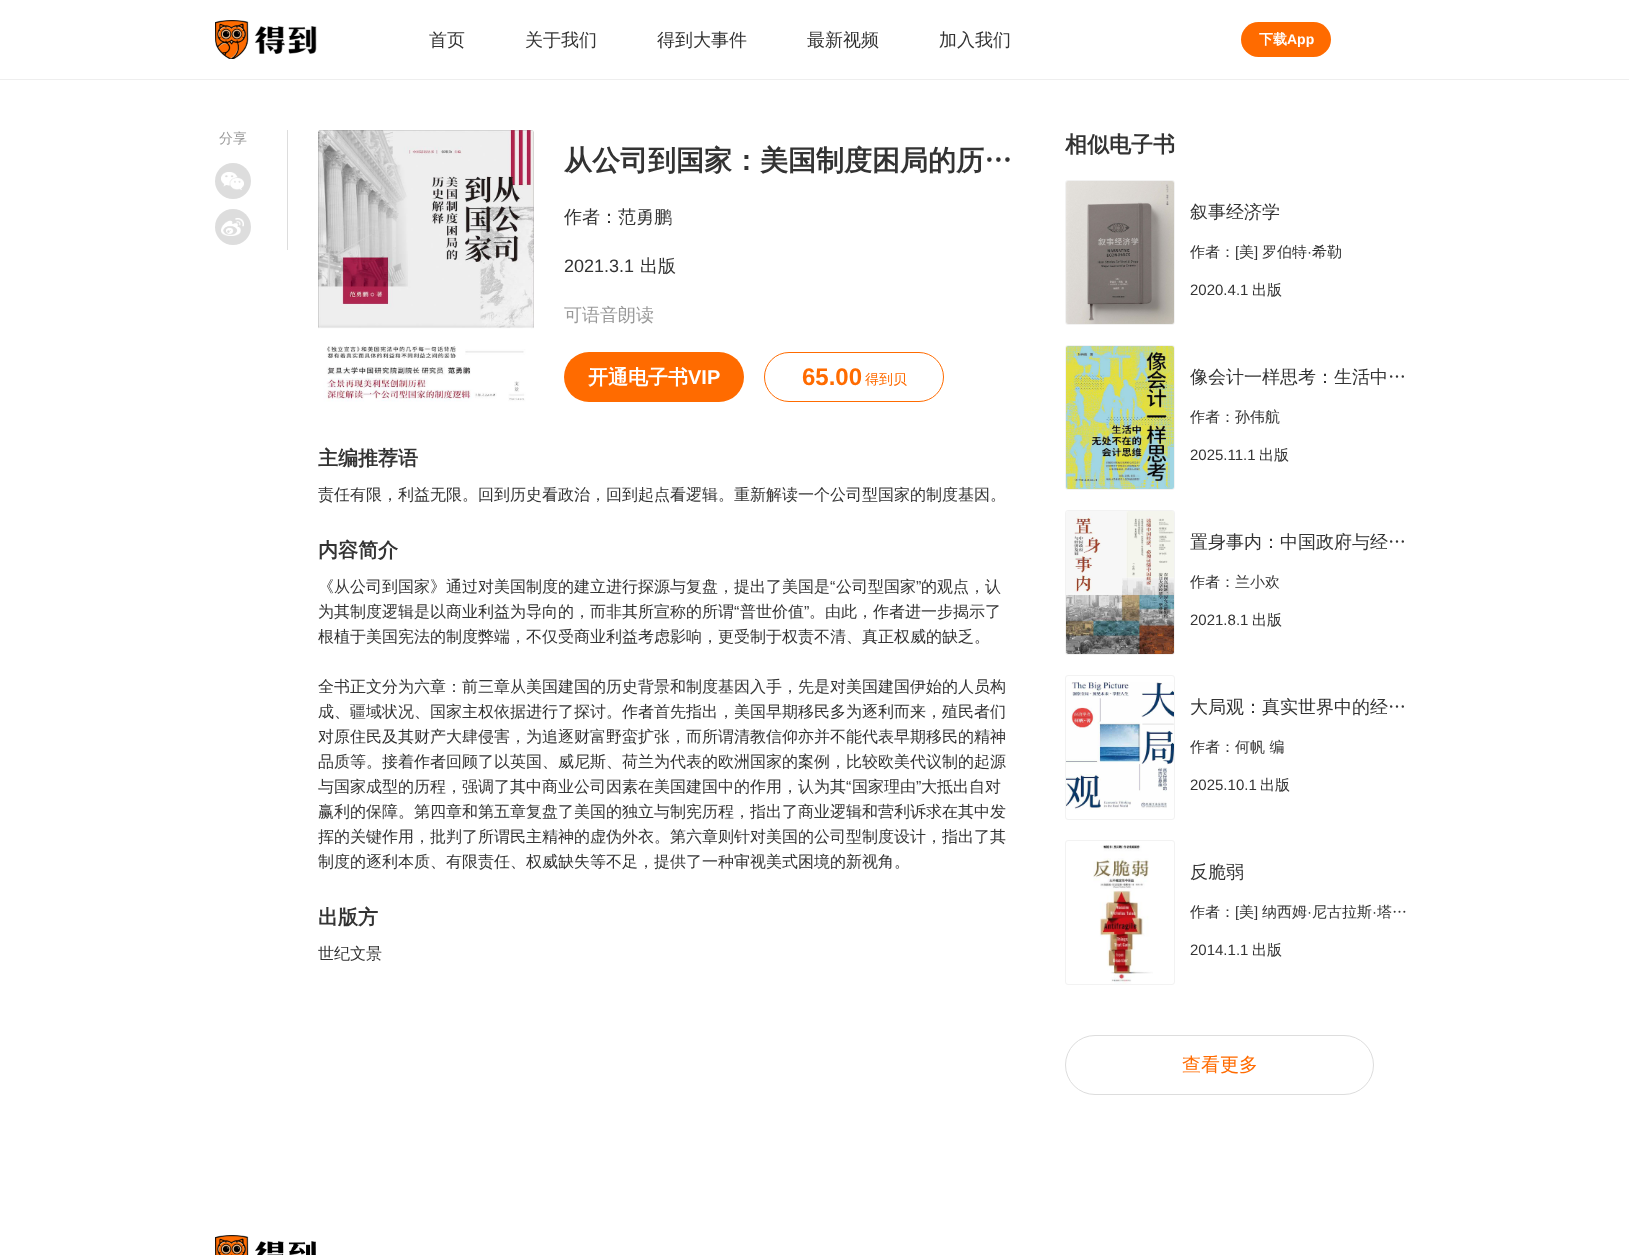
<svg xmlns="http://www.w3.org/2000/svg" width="1629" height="1255">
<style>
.a{font:500 18px WenQuanYi Zen Hei;fill:#333}
.b{font:bold 14px WenQuanYi Zen Hei;fill:#fff}
.c{font:bold 14px Liberation Sans;fill:#fff}
.d{font:500 14px WenQuanYi Zen Hei;fill:#999}
.e{font:bold 28px WenQuanYi Zen Hei;fill:#333}
.f{font:18px Liberation Sans;fill:#333}
.g{font:500 18px WenQuanYi Zen Hei;fill:#999}
.h{font:bold 20px WenQuanYi Zen Hei;fill:#fff}
.i{font:bold 20px Liberation Sans;fill:#fff}
.j{font:bold 24px Liberation Sans;fill:#ff6b00}
.k{font:500 14px WenQuanYi Zen Hei;fill:#ff6b00}
.l{font:bold 20px WenQuanYi Zen Hei;fill:#333}
.m{font:500 16px WenQuanYi Zen Hei;fill:#333}
.n{font:16px Liberation Sans;fill:#333}
.o{font:bold 22px WenQuanYi Zen Hei;fill:#333}
.p{font:500 15px WenQuanYi Zen Hei;fill:#333}
.q{font:15px Liberation Sans;fill:#333}
.r{font:500 19px WenQuanYi Zen Hei;fill:#ff6b00}
</style>
<rect width="100%" height="100%" fill="#fff"/>
<path fill="#eee" d="M0 79h1629v1H0z"/>
<image href="1.png" x="215" y="20" width="102" height="39"/>
<rect fill="#ff6b00" x="1241" y="22" width="90" height="35" rx="17.5"/>
<path fill="#ddd" d="M287 130h1v120H287z"/>
<circle fill="#ddd" cx="233" cy="181" r="18"/>
<image href="2.png" x="221" y="172" width="23" height="18"/>
<circle fill="#ddd" cx="233" cy="227" r="18"/>
<image href="3.png" x="221" y="218" width="23" height="18"/>
<image href="4.png" x="318" y="130" width="216" height="272"/>
<rect fill="#ff6b00" x="564" y="352" width="180" height="50" rx="25"/>
<rect fill="none" stroke="#ff6b00" x="764.5" y="352.5" width="179" height="49" rx="24.5"/>
<rect fill="none" stroke="#f2f2f2" x="1065.5" y="180.5" width="109" height="144" rx="2.5"/>
<image href="5.png" x="1066" y="181" width="108" height="143"/>
<rect fill="none" stroke="#f2f2f2" x="1065.5" y="345.5" width="109" height="144" rx="2.5"/>
<image href="6.png" x="1066" y="346" width="108" height="143"/>
<rect fill="none" stroke="#f2f2f2" x="1065.5" y="510.5" width="109" height="144" rx="2.5"/>
<image href="7.png" x="1066" y="511" width="108" height="143"/>
<rect fill="none" stroke="#f2f2f2" x="1065.5" y="675.5" width="109" height="144" rx="2.5"/>
<image href="8.png" x="1066" y="682" width="108" height="128"/>
<rect fill="none" stroke="#f2f2f2" x="1065.5" y="840.5" width="109" height="144" rx="2.5"/>
<image href="9.png" x="1093" y="845" width="60" height="139"/>
<rect fill="none" stroke="#ddd" x="1065.5" y="1035.5" width="308" height="59" rx="29.5"/>
<image href="10.png" x="215" y="1235" width="101" height="20"/>
<text class="a" x="429" y="46">首页</text>
<text class="a" x="525" y="46">关于我们</text>
<text class="a" x="657" y="46">得到大事件</text>
<text class="a" x="807" y="46">最新视频</text>
<text class="a" x="939" y="46">加入我们</text>
<text class="b" x="1259" y="44">下载</text>
<text class="c" x="1287" y="44">App</text>
<text class="d" x="219" y="143">分享</text>
<text class="e" x="564" y="170">从公司到国家：美国制度困局的历…</text>
<text class="a" x="564" y="223">作者：范勇鹏</text>
<text class="f" x="564" y="272">2021.3.1</text>
<text class="a" x="640" y="272">出版</text>
<text class="g" x="564" y="321">可语音朗读</text>
<text class="h" x="588" y="384">开通电子书</text>
<text class="i" x="688" y="384">VIP</text>
<text class="j" x="802" y="385">65.00</text>
<text class="k" x="865" y="384">得到贝</text>
<text class="l" x="318" y="465">主编推荐语</text>
<text class="m" x="318" y="500">责任有限，利益无限。回到历史看政治，回到起点看逻辑。重新解读一个公司型国家的制度基因。</text>
<text class="l" x="318" y="557">内容简介</text>
<text class="m" x="318" y="592">《从公司到国家》通过对美国制度的建立进行探源与复盘，提出了美国是</text>
<text class="n" x="830" y="592">“</text>
<text class="m" x="836" y="592">公司型国家</text>
<text class="n" x="916" y="592">”</text>
<text class="m" x="921" y="592">的观点，认</text>
<text class="m" x="318" y="617">为其制度逻辑是以商业利益为导向的，而非其所宣称的所谓</text>
<text class="n" x="734" y="617">“</text>
<text class="m" x="740" y="617">普世价值</text>
<text class="n" x="804" y="617">”</text>
<text class="m" x="809" y="617">。由此，作者进一步揭示了</text>
<text class="m" x="318" y="642">根植于美国宪法的制度弊端，不仅受商业利益考虑影响，更受制于权责不清、真正权威的缺乏。</text>
<text class="m" x="318" y="692">全书正文分为六章：前三章从美国建国的历史背景和制度基因入手，先是对美国建国伊始的人员构</text>
<text class="m" x="318" y="717">成、疆域状况、国家主权依据进行了探讨。作者首先指出，美国早期移民多为逐利而来，殖民者们</text>
<text class="m" x="318" y="742">对原住民及其财产大肆侵害，为追逐财富野蛮扩张，而所谓清教信仰亦并不能代表早期移民的精神</text>
<text class="m" x="318" y="767">品质等。接着作者回顾了以英国、威尼斯、荷兰为代表的欧洲国家的案例，比较欧美代议制的起源</text>
<text class="m" x="318" y="792">与国家成型的历程，强调了其中商业公司因素在美国建国中的作用，认为其</text>
<text class="n" x="846" y="792">“</text>
<text class="m" x="852" y="792">国家理由</text>
<text class="n" x="916" y="792">”</text>
<text class="m" x="921" y="792">大抵出自对</text>
<text class="m" x="318" y="817">赢利的保障。第四章和第五章复盘了美国的独立与制宪历程，指出了商业逻辑和营利诉求在其中发</text>
<text class="m" x="318" y="842">挥的关键作用，批判了所谓民主精神的虚伪外衣。第六章则针对美国的公司型制度设计，指出了其</text>
<text class="m" x="318" y="867">制度的逐利本质、有限责任、权威缺失等不足，提供了一种审视美式困境的新视角。</text>
<text class="l" x="318" y="924">出版方</text>
<text class="m" x="318" y="959">世纪文景</text>
<text class="o" x="1065" y="152">相似电子书</text>
<text class="a" x="1190" y="218">叙事经济学</text>
<text class="p" x="1190" y="257">作者：</text>
<text class="q" x="1235" y="257">[</text>
<text class="p" x="1239" y="257">美</text>
<text class="q" x="1254" y="257">]</text>
<text class="p" x="1262" y="257">罗伯特</text>
<text class="q" x="1307" y="257">·</text>
<text class="p" x="1312" y="257">希勒</text>
<text class="q" x="1190" y="295">2020.4.1</text>
<text class="p" x="1252" y="295">出版</text>
<text class="a" x="1190" y="383">像会计一样思考：生活中…</text>
<text class="p" x="1190" y="422">作者：孙伟航</text>
<text class="q" x="1190" y="460">2025.11.1</text>
<text class="p" x="1259" y="460">出版</text>
<text class="a" x="1190" y="548">置身事内：中国政府与经…</text>
<text class="p" x="1190" y="587">作者：兰小欢</text>
<text class="q" x="1190" y="625">2021.8.1</text>
<text class="p" x="1252" y="625">出版</text>
<text class="a" x="1190" y="713">大局观：真实世界中的经…</text>
<text class="p" x="1190" y="752">作者：何帆 编</text>
<text class="q" x="1190" y="790">2025.10.1</text>
<text class="p" x="1260" y="790">出版</text>
<text class="a" x="1190" y="878">反脆弱</text>
<text class="p" x="1190" y="917">作者：</text>
<text class="q" x="1235" y="917">[</text>
<text class="p" x="1239" y="917">美</text>
<text class="q" x="1254" y="917">]</text>
<text class="p" x="1262" y="917">纳西姆</text>
<text class="q" x="1307" y="917">·</text>
<text class="p" x="1312" y="917">尼古拉斯</text>
<text class="q" x="1372" y="917">·</text>
<text class="p" x="1377" y="917">塔…</text>
<text class="q" x="1190" y="955">2014.1.1</text>
<text class="p" x="1252" y="955">出版</text>
<text class="r" x="1182" y="1071">查看更多</text>
</svg>
